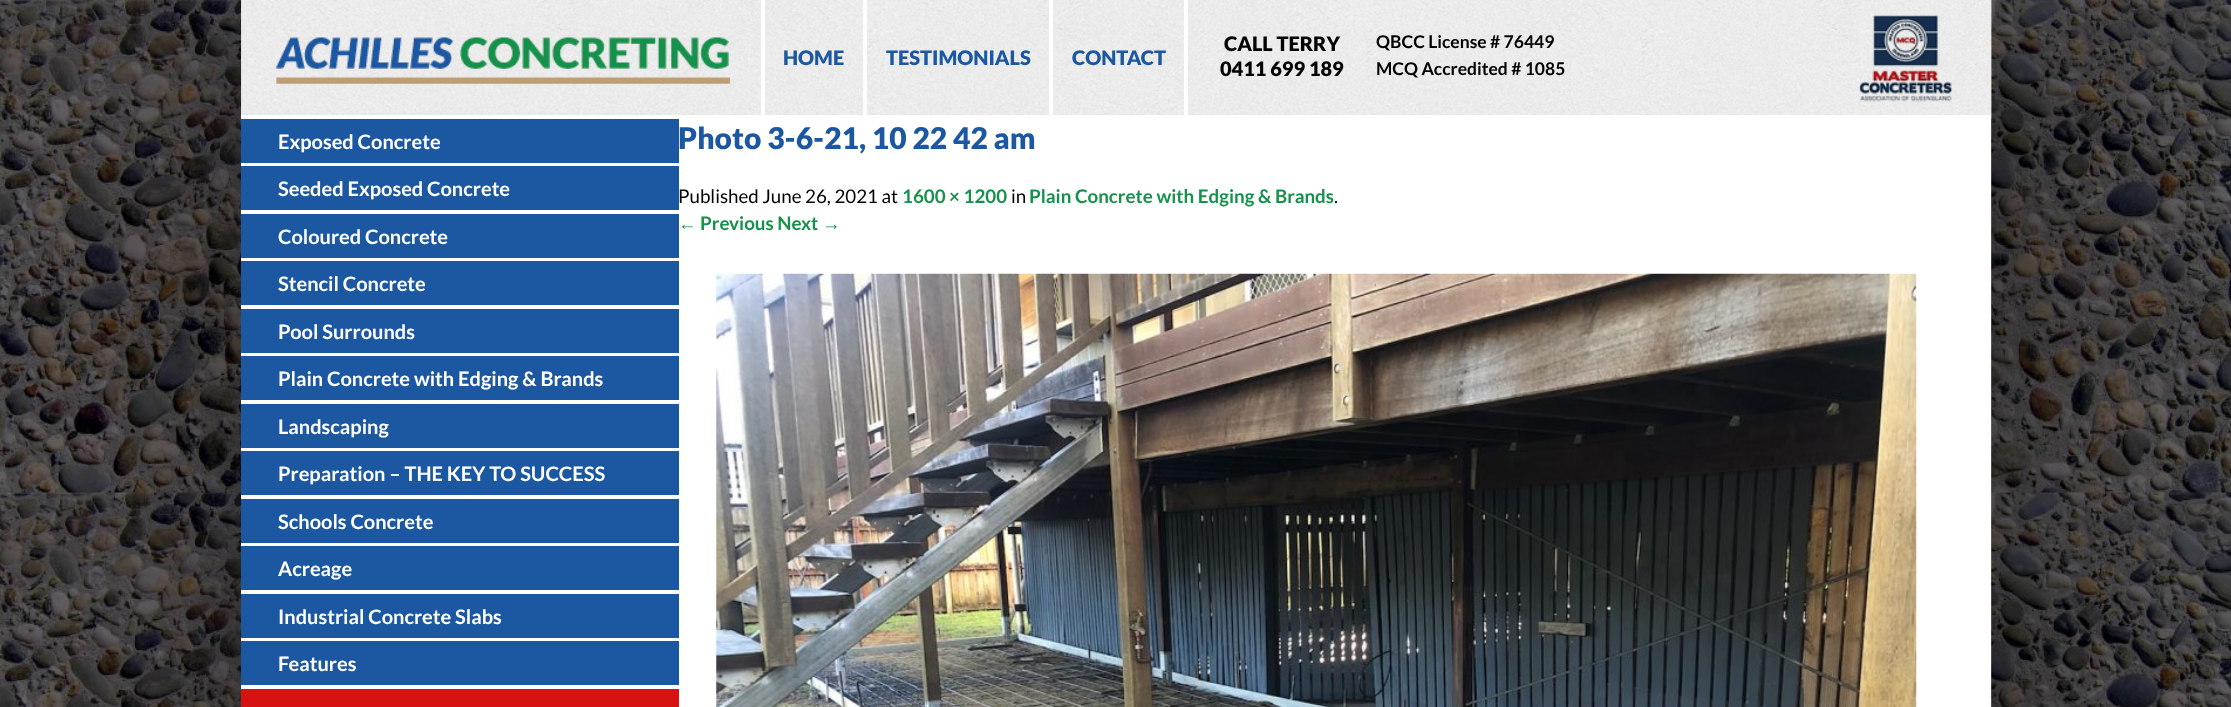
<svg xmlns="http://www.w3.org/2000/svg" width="2231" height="707">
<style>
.a{font:900 20px Lato;fill:#1c58a1}
.b{font:900 20px Lato;fill:#000}
.c{font:bold 17.5px Lato;fill:#000}
.d{font:bold 20px Lato;fill:#fff}
.e{font:900 30px Lato;fill:#1c58a1}
.f{font:18.75px Lato;fill:#000}
.g{font:bold 18.75px Lato;fill:#15914c}
.h{font:bold 18.75px Liberation Serif;fill:#15914c}
</style>
<rect width="100%" height="100%" fill="#fff"/>
<image href="1.png" x="0" y="0" width="2231" height="707"/>
<path fill="#00000075" filter="blur(80px)" d="M243 1h1750v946H243z"/>
<image href="2.png" x="241" y="0" width="1751" height="707"/>
<image href="3.png" x="241" y="0" width="1751" height="119"/>
<path fill="#fff" d="M241 115h1750v4H241z"/>
<image href="4.png" x="241" y="0" width="494" height="115"/>
<path fill="#fff" d="M863 0h4v115H863z"/>
<path fill="#fff" d="M761 0h4v115H761z"/>
<path fill="#fff" d="M1049 0h4v115H1049z"/>
<path fill="#fff" d="M1184 0h4v115H1184z"/>
<image href="5.png" x="1858" y="0" width="96" height="115"/>
<path fill="#1c58a1" d="M241 119h438v44H241z"/>
<path fill="#fff" d="M241 163h438v3H241z"/>
<path fill="#1c58a1" d="M241 166h438v44H241z"/>
<path fill="#fff" d="M241 210h438v4H241z"/>
<path fill="#1c58a1" d="M241 214h438v44H241z"/>
<path fill="#fff" d="M241 258h438v3H241z"/>
<path fill="#1c58a1" d="M241 261h438v44H241z"/>
<path fill="#fff" d="M241 305h438v4H241z"/>
<path fill="#1c58a1" d="M241 309h438v44H241z"/>
<path fill="#fff" d="M241 353h438v3H241z"/>
<path fill="#1c58a1" d="M241 356h438v44H241z"/>
<path fill="#fff" d="M241 400h438v4H241z"/>
<path fill="#1c58a1" d="M241 404h438v44H241z"/>
<path fill="#fff" d="M241 448h438v3H241z"/>
<path fill="#1c58a1" d="M241 451h438v44H241z"/>
<path fill="#fff" d="M241 495h438v4H241z"/>
<path fill="#1c58a1" d="M241 499h438v44H241z"/>
<path fill="#fff" d="M241 543h438v3H241z"/>
<path fill="#1c58a1" d="M241 546h438v44H241z"/>
<path fill="#fff" d="M241 590h438v4H241z"/>
<path fill="#1c58a1" d="M241 594h438v44H241z"/>
<path fill="#fff" d="M241 638h438v3H241z"/>
<path fill="#1c58a1" d="M241 641h438v44H241z"/>
<path fill="#fff" d="M241 685h438v4H241z"/>
<path fill="#d71212" d="M241 689h438v18H241z"/>
<path fill="#fff" d="M679 119h1312v588H679z"/>
<image href="6.png" x="716" y="273" width="1201" height="434"/>
<text class="a" x="783" y="65">HOME</text>
<text class="a" x="886" y="65">TESTIMONIALS</text>
<text class="a" x="1072" y="65">CONTACT</text>
<text class="b" x="1224" y="51">CALL TERRY</text>
<text class="b" x="1220" y="76">0411 699 189</text>
<text class="c" x="1376" y="48">QBCC License # 76449</text>
<text class="c" x="1376" y="75">MCQ Accredited # 1085</text>
<text class="d" x="278" y="149">Exposed Concrete</text>
<text class="d" x="278" y="196">Seeded Exposed Concrete</text>
<text class="d" x="278" y="244">Coloured Concrete</text>
<text class="d" x="278" y="291">Stencil Concrete</text>
<text class="d" x="278" y="339">Pool Surrounds</text>
<text class="d" x="278" y="386">Plain Concrete with Edging &amp; Brands</text>
<text class="d" x="278" y="434">Landscaping</text>
<text class="d" x="278" y="481">Preparation – THE KEY TO SUCCESS</text>
<text class="d" x="278" y="529">Schools Concrete</text>
<text class="d" x="278" y="576">Acreage</text>
<text class="d" x="278" y="624">Industrial Concrete Slabs</text>
<text class="d" x="278" y="671">Features</text>
<text class="e" x="678" y="149">Photo 3-6-21, 10 22 42 am</text>
<text class="f" x="678" y="203">Published June 26, 2021 at</text>
<text class="g" x="902" y="203">1600 × 1200</text>
<text class="f" x="1011" y="203">in</text>
<text class="g" x="1029" y="203">Plain Concrete with Edging &amp; Brands</text>
<text class="f" x="1334" y="203">.</text>
<text class="h" x="678" y="230">←</text>
<text class="g" x="700" y="230">Previous Next</text>
<text class="h" x="822" y="230">→</text>
</svg>
